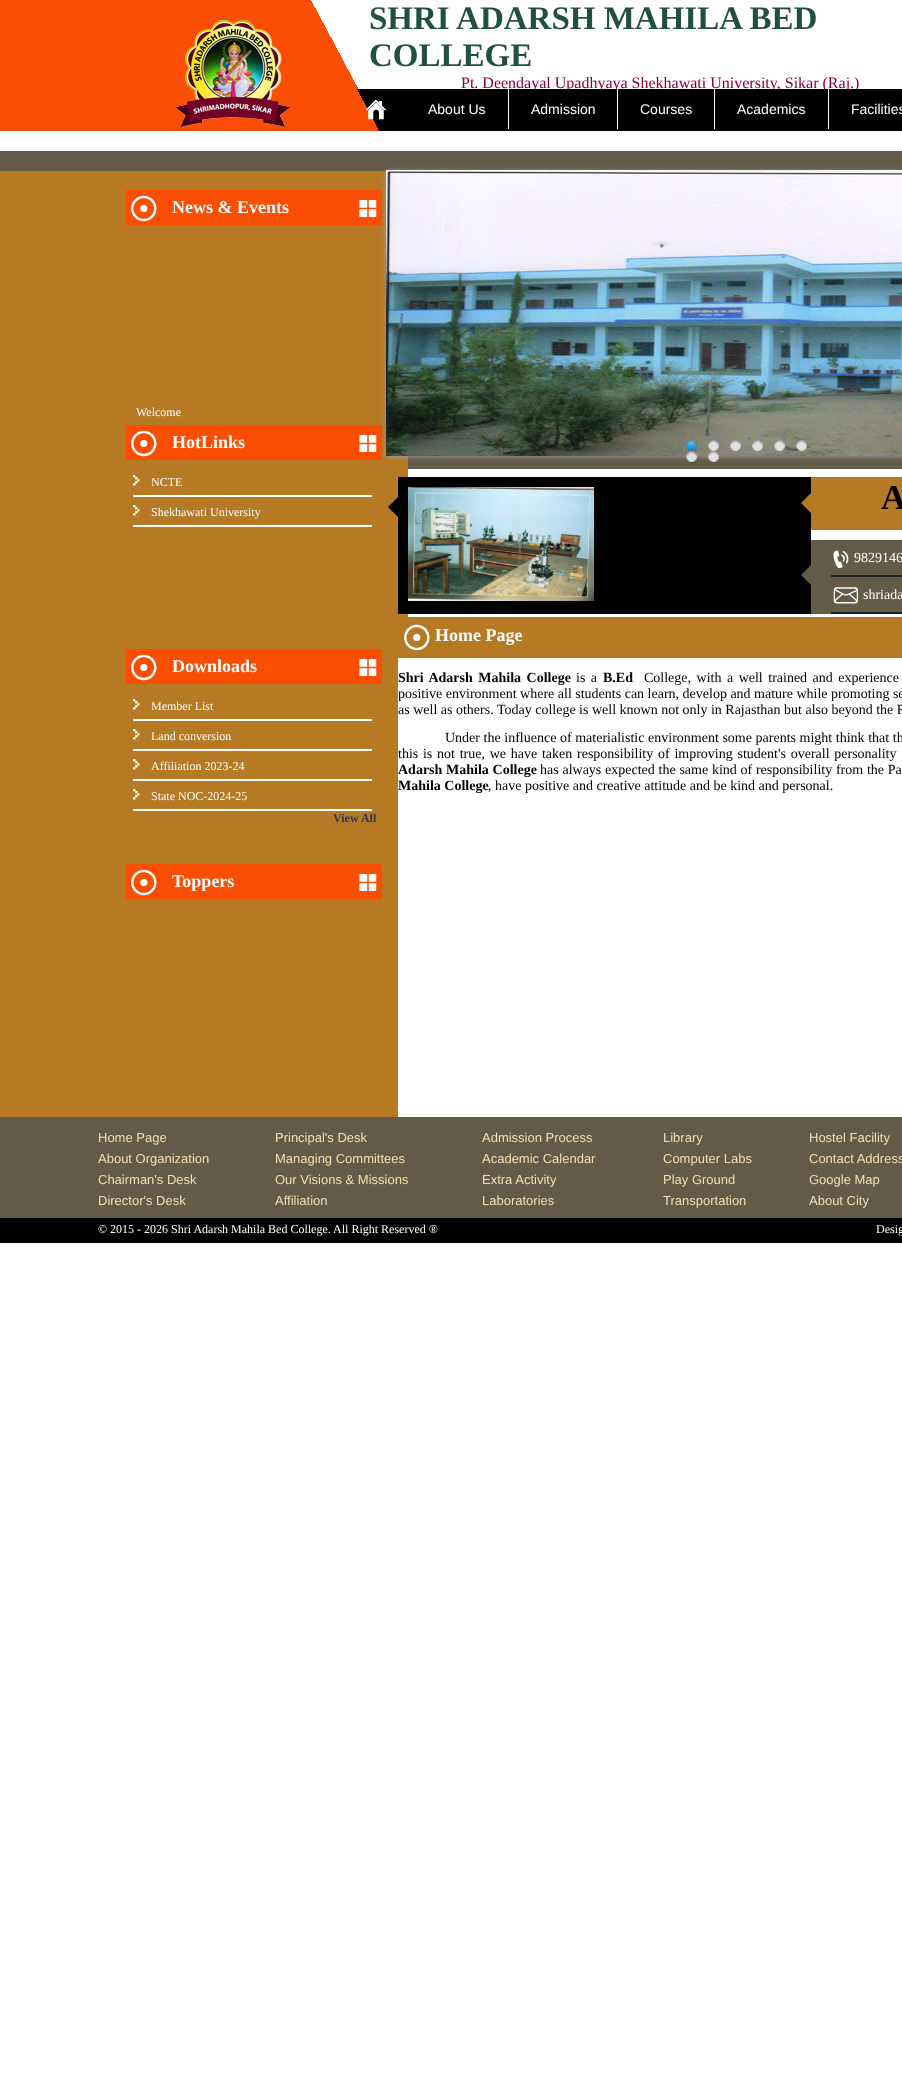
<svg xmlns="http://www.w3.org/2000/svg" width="902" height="2095">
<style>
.a{font:bold 33px Liberation Serif;fill:#20513e}
.b{font:16px Liberation Serif;fill:#8e0025}
.c{font:14px Liberation Sans;fill:#fff}
.d{font:bold 18px Liberation Serif;fill:#fff}
.e{font:12px Liberation Serif;fill:#fff}
.f{font:bold 35px Liberation Serif;fill:#000}
.g{font:14px Liberation Serif;fill:#fff}
.h{font:bold 12px Liberation Serif;fill:#293a56}
.i{font:bold 14px Liberation Serif;fill:#000}
.j{font:14px Liberation Serif;fill:#000}
.k{font:13px Liberation Sans;fill:#f5deb3}
</style>
<defs>
<linearGradient id="g1" gradientUnits="userSpaceOnUse" x1="105" y1="329" x2="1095" y2="-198"><stop offset="0.3" stop-color="#f94e03"/><stop offset="0.3" stop-color="#fff"/></linearGradient>
<linearGradient id="g2" gradientUnits="userSpaceOnUse" x1="124" y1="363" x2="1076" y2="-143"><stop offset="0.31" stop-color="#f94e03"/><stop offset="0.31" stop-color="#000"/></linearGradient>
</defs>
<rect width="100%" height="100%" fill="#fff"/>
<path fill="url(#g1)" d="M0 0h358v89H0z"/>
<path fill="#b67a25" d="M0 171h408v946H0z"/>
<path fill="#625b47" d="M408 456h494v13H408z"/>
<path fill="#625b47" d="M0 151h902v20H0z"/>
<path fill="#f94e03" d="M126 190h256v35H126z"/>
<image href="3.png" x="131" y="195" width="26" height="27"/>
<image href="4.png" x="359" y="200" width="18" height="17"/>
<path fill="#f94e03" d="M126 425h256v35H126z"/>
<image href="3.png" x="131" y="430" width="26" height="27"/>
<image href="4.png" x="359" y="435" width="18" height="17"/>
<path fill="#fff" d="M133 495h239v2H133z"/>
<image href="5.png" x="133" y="475" width="7" height="11"/>
<path fill="#fff" d="M133 525h239v2H133z"/>
<image href="5.png" x="133" y="505" width="7" height="11"/>
<path fill="#999" filter="blur(2.5px)" d="M386 171h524v286H386z"/>
<image href="6.png" x="386" y="170" width="516" height="286"/>
<image href="7.png" x="686" y="440" width="11" height="11"/>
<image href="8.png" x="708" y="440" width="11" height="11"/>
<image href="9.png" x="730" y="440" width="11" height="11"/>
<image href="10.png" x="752" y="440" width="11" height="11"/>
<image href="11.png" x="774" y="440" width="11" height="11"/>
<image href="12.png" x="796" y="440" width="11" height="11"/>
<image href="13.png" x="686" y="451" width="11" height="11"/>
<image href="14.png" x="708" y="451" width="11" height="11"/>
<path fill="#000" d="M398 497v20l-10-10z"/>
<path fill="#000" d="M398 477h413v137H398z"/>
<image href="15.png" x="408" y="487" width="186" height="114"/>
<path fill="#b67a25" d="M811 493v20l-10-10z"/>
<path fill="#625b47" d="M811 565v20l-10-10z"/>
<path fill="#b67a25" d="M811 477h91v53H811z"/>
<path fill="#625b47" d="M811 540h91v74H811z"/>
<path fill="#1a2023" d="M831 575h71v2H831z"/>
<image href="16.png" x="833" y="550" width="16" height="18"/>
<path fill="#1a2023" d="M831 612h71v2H831z"/>
<image href="17.png" x="833" y="587" width="25" height="17"/>
<path fill="#f94e03" d="M126 649h256v35H126z"/>
<image href="3.png" x="131" y="654" width="26" height="27"/>
<image href="4.png" x="359" y="659" width="18" height="17"/>
<path fill="#fff" d="M133 719h239v2H133z"/>
<image href="5.png" x="133" y="699" width="7" height="11"/>
<path fill="#fff" d="M133 749h239v2H133z"/>
<image href="5.png" x="133" y="729" width="7" height="11"/>
<path fill="#fff" d="M133 779h239v2H133z"/>
<image href="5.png" x="133" y="759" width="7" height="11"/>
<path fill="#fff" d="M133 809h239v2H133z"/>
<image href="5.png" x="133" y="789" width="7" height="11"/>
<path fill="#f94e03" d="M126 864h256v35H126z"/>
<image href="3.png" x="131" y="869" width="26" height="27"/>
<image href="4.png" x="359" y="874" width="18" height="17"/>
<path fill="#fff" d="M398 658h10v459H398z"/>
<path fill="#b67a25" d="M408 617h494v41H408z"/>
<image href="18.png" x="404" y="624" width="26" height="27"/>
<path fill="#625b47" d="M0 1117h902v101H0z"/>
<path fill="#000" d="M0 1218h902v25H0z"/>
<text class="a" x="369" y="29">SHRI ADARSH MAHILA BED</text>
<text class="a" x="369" y="66">COLLEGE</text>
<text class="b" x="461" y="88">Pt. Deendayal Upadhyaya Shekhawati University, Sikar (Raj.)</text>
<path fill="url(#g2)" d="M0 89h902v42H0z"/>
<image href="1.png" x="175" y="20" width="116" height="107"/>
<image href="2.png" x="366" y="100" width="20" height="20"/>
<path fill="#fff" d="M508 89h1v40H508z"/>
<text class="c" x="428" y="114">About Us</text>
<path fill="#fff" d="M617 89h1v40H617z"/>
<text class="c" x="531" y="114">Admission</text>
<path fill="#fff" d="M714 89h1v40H714z"/>
<text class="c" x="640" y="114">Courses</text>
<path fill="#fff" d="M828 89h1v40H828z"/>
<text class="c" x="737" y="114">Academics</text>
<text class="c" x="851" y="114">Facilities</text>
<text class="d" x="172" y="213">News &amp; Events</text>
<text class="e" x="136" y="416">Welcome</text>
<text class="d" x="172" y="448">HotLinks</text>
<text class="e" x="151" y="486">NCTE</text>
<text class="e" x="151" y="516">Shekhawati University</text>
<text class="f" x="881" y="509">A</text>
<text class="g" x="854" y="562">9829146</text>
<text class="g" x="863" y="599">shriada</text>
<text class="d" x="172" y="672">Downloads</text>
<text class="e" x="151" y="710">Member List</text>
<text class="e" x="151" y="740">Land conversion</text>
<text class="e" x="151" y="770">Affiliation 2023-24</text>
<text class="e" x="151" y="800">State NOC-2024-25</text>
<text class="h" x="333" y="822">View All</text>
<text class="d" x="172" y="887">Toppers</text>
<text class="d" x="435" y="641">Home Page</text>
<text class="i" x="398" y="682" word-spacing="2">Shri Adarsh Mahila College</text>
<text class="j" x="576" y="682" word-spacing="2">is a</text>
<text class="i" x="603" y="682">B.Ed</text>
<text class="j" x="644" y="682" word-spacing="2">College, with a well trained and experience</text>
<text class="j" x="398" y="698">positive environment where all students can learn, develop and mature while promoting se</text>
<text class="j" x="398" y="714">as well as others. Today college is well known not only in Rajasthan but also beyond the R</text>
<text class="j" x="445" y="742" word-spacing="0.1">Under the influence of materialistic environment some parents might think that th</text>
<text class="j" x="398" y="758" word-spacing="1.25">this is not true, we have taken responsibility of improving student's overall personality</text>
<text class="i" x="398" y="774" word-spacing="0.25">Adarsh Mahila College</text>
<text class="j" x="540" y="774" word-spacing="0.25">has always expected the same kind of responsibility from the Pa</text>
<text class="i" x="398" y="790">Mahila College</text>
<text class="j" x="488" y="790">, have positive and creative attitude and be kind and personal.</text>
<text class="k" x="98" y="1142">Home Page</text>
<text class="k" x="275" y="1142">Principal's Desk</text>
<text class="k" x="482" y="1142">Admission Process</text>
<text class="k" x="663" y="1142">Library</text>
<text class="k" x="809" y="1142">Hostel Facility</text>
<text class="k" x="98" y="1163">About Organization</text>
<text class="k" x="275" y="1163">Managing Committees</text>
<text class="k" x="482" y="1163">Academic Calendar</text>
<text class="k" x="663" y="1163">Computer Labs</text>
<text class="k" x="809" y="1163">Contact Address</text>
<text class="k" x="98" y="1184">Chairman's Desk</text>
<text class="k" x="275" y="1184">Our Visions &amp; Missions</text>
<text class="k" x="482" y="1184">Extra Activity</text>
<text class="k" x="663" y="1184">Play Ground</text>
<text class="k" x="809" y="1184">Google Map</text>
<text class="k" x="98" y="1205">Director's Desk</text>
<text class="k" x="275" y="1205">Affiliation</text>
<text class="k" x="482" y="1205">Laboratories</text>
<text class="k" x="663" y="1205">Transportation</text>
<text class="k" x="809" y="1205">About City</text>
<text class="e" x="98" y="1233">© 2015 - 2026 Shri Adarsh Mahila Bed College. All Right Reserved ®</text>
<text class="e" x="876" y="1233">Desig</text>
</svg>
